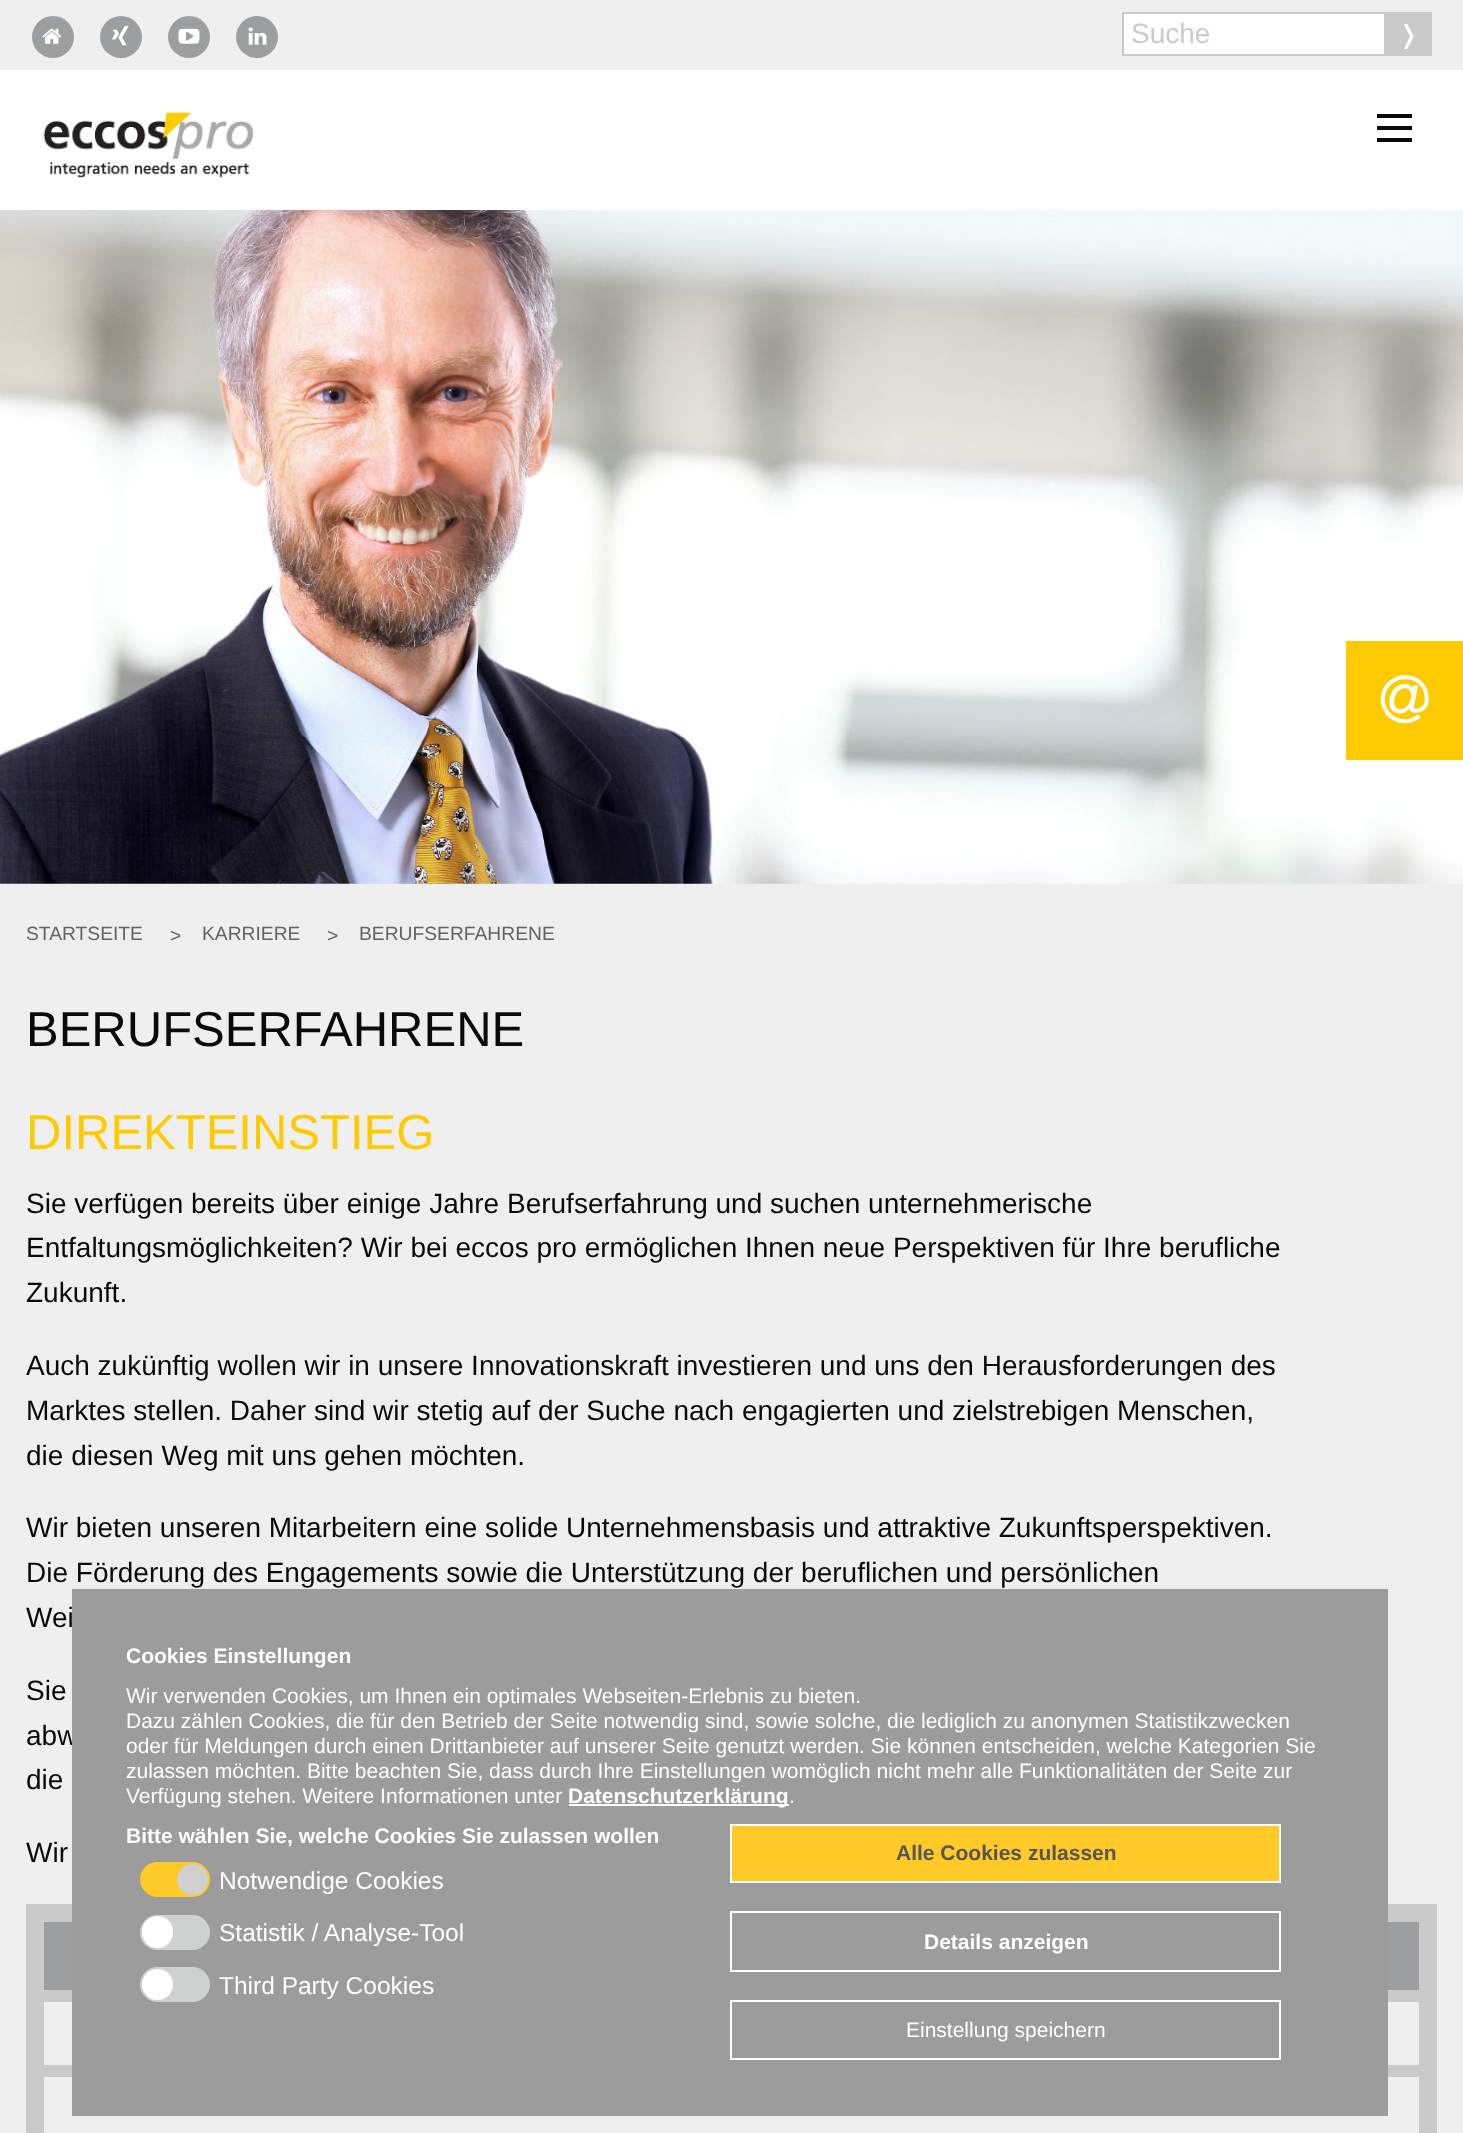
<svg xmlns="http://www.w3.org/2000/svg" width="1463" height="2133">
<style>
.a{font:28px Liberation Sans;fill:#cacaca}
.b{font:25px DejaVu Sans;fill:#fefefe}
.c{font:19.25px Liberation Sans;fill:#646464}
.d{font:49px Liberation Sans;fill:#0a0a0a}
.e{font:49px Liberation Sans;fill:#fecb01}
.f{font:28px Liberation Sans;fill:#0a0a0a}
.g{font:bold 21px Liberation Sans;fill:#fefefe}
.h{font:21px Liberation Sans;fill:#fefefe}
.i{font:24.5px Liberation Sans;fill:#fefefe}
.j{font:bold 21px Liberation Sans;fill:#565655}
</style>
<rect width="100%" height="100%" fill="#efefef"/>
<circle fill="#9c9e9f" cx="53" cy="37" r="21"/>
<image href="1.png" x="42" y="28" width="20" height="16"/>
<circle fill="#9c9e9f" cx="121" cy="37" r="21"/>
<image href="2.png" x="112" y="25" width="17" height="21"/>
<circle fill="#9c9e9f" cx="189" cy="37" r="21"/>
<image href="3.png" x="178" y="28" width="22" height="16"/>
<circle fill="#9c9e9f" cx="257" cy="37" r="21"/>
<image href="4.png" x="248" y="27" width="19" height="18"/>
<path fill="#fefefe" stroke="#cacaca" stroke-width="2" d="M1123 13h262v42H1123z"/>
<path fill="#cacaca" d="M1386 12h46v44H1386z"/>
<path fill="#fff" d="M0 70h1463v140H0z"/>
<image href="5.png" x="43" y="112" width="211" height="66"/>
<path fill="#0a0a0a" d="M1377 138h35v4H1377z"/>
<path fill="#0a0a0a" d="M1377 126h35v4H1377z"/>
<path fill="#0a0a0a" d="M1377 114h35v4H1377z"/>
<image href="6.png" x="0" y="210" width="1463" height="674"/>
<path fill="#fecb01" d="M1346 641h117v119H1346z"/>
<image href="7.png" x="1380" y="675" width="49" height="49"/>
<path fill="#cacaca" d="M26 1904h1411v229H26z"/>
<path fill="#9c9e9f" d="M44 1922h1375v68H44z"/>
<path fill="#efefef" d="M44 2002h1375v63H44z"/>
<path fill="#efefef" d="M44 2077h1375v56H44z"/>
<text class="a" x="1131" y="43">Suche</text>
<text class="b" x="1398" y="43">❭</text>
<text class="c" x="26" y="940">STARTSEITE</text>
<text class="c" x="170" y="942">&gt;</text>
<text class="c" x="202" y="940">KARRIERE</text>
<text class="c" x="327" y="942">&gt;</text>
<text class="c" x="359" y="940">BERUFSERFAHRENE</text>
<text class="d" x="26" y="1046">BERUFSERFAHRENE</text>
<text class="e" x="26" y="1149">DIREKTEINSTIEG</text>
<text class="f" x="26" y="1213">Sie verfügen bereits über einige Jahre Berufserfahrung und suchen unternehmerische</text>
<text class="f" x="26" y="1257">Entfaltungsmöglichkeiten? Wir bei eccos pro ermöglichen Ihnen neue Perspektiven für Ihre berufliche</text>
<text class="f" x="26" y="1302">Zukunft.</text>
<text class="f" x="26" y="1375">Auch zukünftig wollen wir in unsere Innovationskraft investieren und uns den Herausforderungen des</text>
<text class="f" x="26" y="1420">Marktes stellen. Daher sind wir stetig auf der Suche nach engagierten und zielstrebigen Menschen,</text>
<text class="f" x="26" y="1465">die diesen Weg mit uns gehen möchten.</text>
<text class="f" x="26" y="1537">Wir bieten unseren Mitarbeitern eine solide Unternehmensbasis und attraktive Zukunftsperspektiven.</text>
<text class="f" x="26" y="1582">Die Förderung des Engagements sowie die Unterstützung der beruflichen und persönlichen</text>
<text class="f" x="26" y="1627">Wei</text>
<text class="f" x="26" y="1700">Sie</text>
<text class="f" x="26" y="1745">abw</text>
<text class="f" x="26" y="1789">die</text>
<text class="f" x="26" y="1862">Wir</text>
<path fill="#9c9c9d" d="M72 1589h1316v527H72z"/>
<text class="g" x="126" y="1663">Cookies Einstellungen</text>
<text class="h" x="126" y="1703">Wir verwenden Cookies, um Ihnen ein optimales Webseiten-Erlebnis zu bieten.</text>
<text class="h" x="126" y="1728">Dazu zählen Cookies, die für den Betrieb der Seite notwendig sind, sowie solche, die lediglich zu anonymen Statistikzwecken</text>
<text class="h" x="126" y="1753">oder für Meldungen durch einen Drittanbieter auf unserer Seite genutzt werden. Sie können entscheiden, welche Kategorien Sie</text>
<text class="h" x="126" y="1778">zulassen möchten. Bitte beachten Sie, dass durch Ihre Einstellungen womöglich nicht mehr alle Funktionalitäten der Seite zur</text>
<text class="h" x="126" y="1803">Verfügung stehen. Weitere Informationen unter</text>
<path fill="#fff" d="M569 1804h220v2H569z"/>
<text class="g" x="568" y="1803">Datenschutzerklärung</text>
<text class="h" x="789" y="1803">.</text>
<text class="g" x="126" y="1843">Bitte wählen Sie, welche Cookies Sie zulassen wollen</text>
<rect fill="#ffc927" x="140" y="1862" width="70" height="35" rx="17.5"/>
<circle fill="#cfd0d0" cx="192.5" cy="1879.5" r="15.5"/>
<text class="i" x="219" y="1889">Notwendige Cookies</text>
<rect fill="#cfd0d0" x="140" y="1915" width="70" height="35" rx="17.5"/>
<rect fill="#fff" x="142" y="1916" width="31" height="32" rx="15.5"/>
<text class="i" x="219" y="1941">Statistik / Analyse-Tool</text>
<rect fill="#cfd0d0" x="140" y="1967" width="70" height="35" rx="17.5"/>
<circle fill="#fff" cx="157.5" cy="1984.5" r="15.5"/>
<text class="i" x="219" y="1994">Third Party Cookies</text>
<path fill="#ffc927" stroke="#fff" stroke-width="2" d="M731 1825h549v57H731z"/>
<text class="j" x="896" y="1860">Alle Cookies zulassen</text>
<path fill="none" stroke="#fff" stroke-width="2" d="M731 1912h549v59H731z"/>
<text class="g" x="924" y="1949">Details anzeigen</text>
<path fill="none" stroke="#fff" stroke-width="2" d="M731 2001h549v58H731z"/>
<text class="h" x="906" y="2037">Einstellung speichern</text>
</svg>
